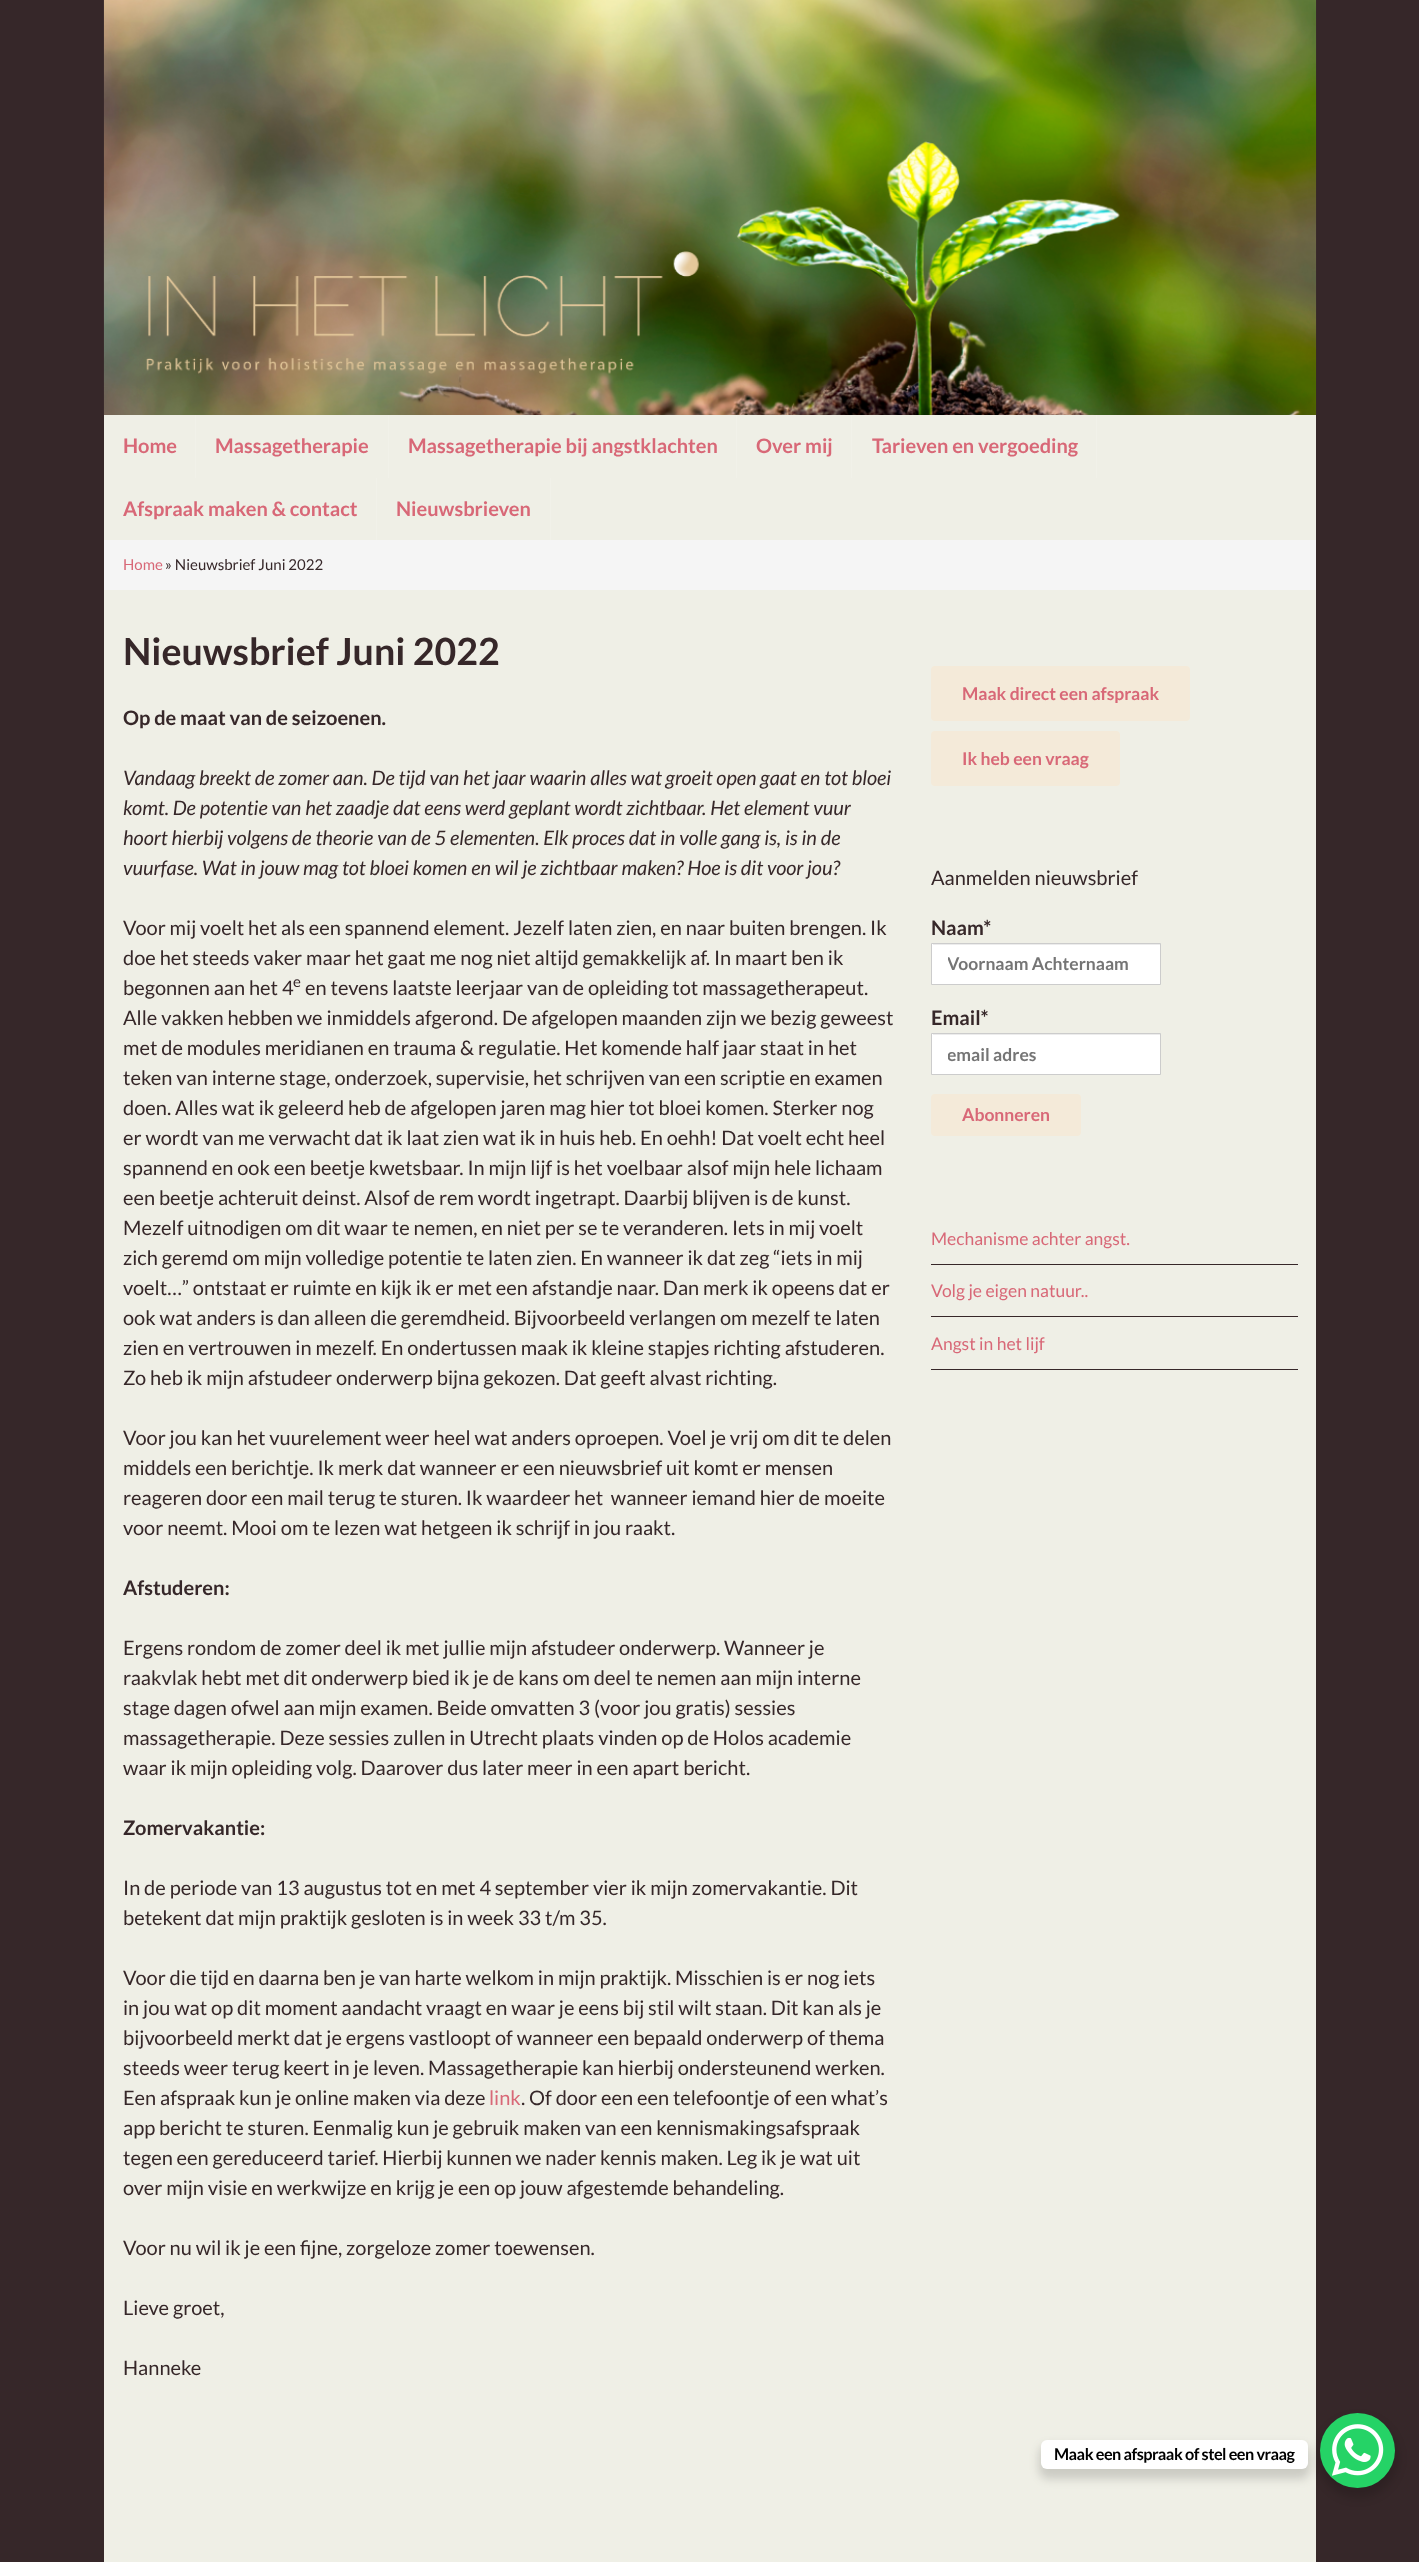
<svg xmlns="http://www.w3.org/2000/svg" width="1419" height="2562">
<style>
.a{font:bold 20px Lato;fill:#d86877}
.b{font:15px Lato;fill:#d86877}
.c{font:15px Lato;fill:#362729}
.d{font:bold 37.5px Lato;fill:#362729}
.e{font:bold 20px Lato;fill:#362729}
.f{font:italic 20px Lato;fill:#362729}
.g{font:20px Lato;fill:#362729}
.h{font:20px Lato;fill:#d86877}
.i{font:bold 17.5px Lato;fill:#d86877}
.j{font:bold 17.5px Lato;fill:#757575}
.k{font:17.5px Lato;fill:#d86877}
.l{font:bold 16.25px Lato;letter-spacing:-0.5px;fill:#000}
</style>
<defs>
<clipPath id="clip1"><path d="M948 953h197v21H948z"/></clipPath>
<clipPath id="clip2"><path d="M948 1044h197v21H948z"/></clipPath>
</defs>
<rect width="100%" height="100%" fill="#362729"/>
<image href="1.png" x="103" y="0" width="1214" height="415"/>
<path fill="#efefe6" d="M104 415h1212v125H104z"/>
<path fill="#f1f1e9" d="M195 415h1v63H195z"/>
<path fill="#f1f1e9" d="M388 415h1v63H388z"/>
<path fill="#f1f1e9" d="M736 415h1v63H736z"/>
<path fill="#f1f1e9" d="M851 415h1v63H851z"/>
<path fill="#f1f1e9" d="M1096 415h1v63H1096z"/>
<path fill="#f1f1e9" d="M376 478h1v62H376z"/>
<path fill="#f1f1e9" d="M550 478h1v62H550z"/>
<path fill="#f5f5f5" d="M104 540h1212v50H104z"/>
<path fill="#efefe6" d="M104 590h1212v1972H104z"/>
<rect fill="#f4ead9" x="931" y="666" width="259" height="55" rx="4"/>
<rect fill="#f4ead9" x="931" y="731" width="189" height="55" rx="4"/>
<path fill="#fff" d="M932 944h228v40H932z"/>
<path fill="#ececec" d="M933 944h227v1H933z"/>
<path fill="none" stroke="#ccc" d="M931.5 943.5h229v41H931.5z"/>
<path fill="#fff" d="M932 1034h228v40H932z"/>
<path fill="#ececec" d="M933 1034h227v1H933z"/>
<path fill="none" stroke="#ccc" d="M931.5 1033.5h229v41H931.5z"/>
<rect fill="#f4ead9" x="931" y="1094" width="150" height="42" rx="4"/>
<path fill="#362729" d="M931 1264h367v1H931z"/>
<path fill="#362729" d="M931 1316h367v1H931z"/>
<path fill="#362729" d="M931 1369h367v1H931z"/>
<rect fill="#00000026" filter="blur(5px)" x="1318" y="2418" width="80" height="80" rx="40"/>
<circle fill="#25d366" cx="1357.5" cy="2450.5" r="37.5"/>
<rect fill="#00000026" filter="blur(5px)" x="1039" y="2445" width="271" height="34" rx="9"/>
<rect fill="#fff" x="1041" y="2440" width="267" height="29" rx="6"/>
<image href="2.png" x="1332" y="2424" width="52" height="52"/>
<text class="a" x="123" y="453">Home</text>
<text class="a" x="215" y="453">Massagetherapie</text>
<text class="a" x="408" y="453">Massagetherapie bij angstklachten</text>
<text class="a" x="756" y="453">Over mij</text>
<text class="a" x="872" y="453">Tarieven en vergoeding</text>
<text class="a" x="123" y="516">Afspraak maken &amp; contact</text>
<text class="a" x="396" y="516">Nieuwsbrieven</text>
<text class="b" x="123" y="570">Home</text>
<text class="c" x="165" y="570">» Nieuwsbrief Juni 2022</text>
<text class="d" x="123" y="665">Nieuwsbrief Juni 2022</text>
<text class="e" x="123" y="725">Op de maat van de seizoenen.</text>
<text class="f" x="123" y="785">Vandaag breekt de zomer aan. De tijd van het jaar waarin alles wat groeit open gaat en tot bloei</text>
<text class="f" x="123" y="815">komt. De potentie van het zaadje dat eens werd geplant wordt zichtbaar. Het element vuur</text>
<text class="f" x="123" y="845">hoort hierbij volgens de theorie van de 5 elementen. Elk proces dat in volle gang is, is in de</text>
<text class="f" x="123" y="875">vuurfase. Wat in jouw mag tot bloei komen en wil je zichtbaar maken? Hoe is dit voor jou?</text>
<text class="g" x="123" y="935">Voor mij voelt het als een spannend element. Jezelf laten zien, en naar buiten brengen. Ik</text>
<text class="g" x="123" y="965">doe het steeds vaker maar het gaat me nog niet altijd gemakkelijk af. In maart ben ik</text>
<text class="g" x="123" y="995">begonnen aan het 4</text>
<text class="c" x="293" y="987">e</text>
<text class="g" x="305" y="995">en tevens laatste leerjaar van de opleiding tot massagetherapeut.</text>
<text class="g" x="123" y="1025">Alle vakken hebben we inmiddels afgerond. De afgelopen maanden zijn we bezig geweest</text>
<text class="g" x="123" y="1055">met de modules meridianen en trauma &amp; regulatie. Het komende half jaar staat in het</text>
<text class="g" x="123" y="1085">teken van interne stage, onderzoek, supervisie, het schrijven van een scriptie en examen</text>
<text class="g" x="123" y="1115">doen. Alles wat ik geleerd heb de afgelopen jaren mag hier tot bloei komen. Sterker nog</text>
<text class="g" x="123" y="1145">er wordt van me verwacht dat ik laat zien wat ik in huis heb. En oehh! Dat voelt echt heel</text>
<text class="g" x="123" y="1175">spannend en ook een beetje kwetsbaar. In mijn lijf is het voelbaar alsof mijn hele lichaam</text>
<text class="g" x="123" y="1205">een beetje achteruit deinst. Alsof de rem wordt ingetrapt. Daarbij blijven is de kunst.</text>
<text class="g" x="123" y="1235">Mezelf uitnodigen om dit waar te nemen, en niet per se te veranderen. Iets in mij voelt</text>
<text class="g" x="123" y="1265">zich geremd om mijn volledige potentie te laten zien. En wanneer ik dat zeg “iets in mij</text>
<text class="g" x="123" y="1295">voelt…” ontstaat er ruimte en kijk ik er met een afstandje naar. Dan merk ik opeens dat er</text>
<text class="g" x="123" y="1325">ook wat anders is dan alleen die geremdheid. Bijvoorbeeld verlangen om mezelf te laten</text>
<text class="g" x="123" y="1355">zien en vertrouwen in mezelf. En ondertussen maak ik kleine stapjes richting afstuderen.</text>
<text class="g" x="123" y="1385">Zo heb ik mijn afstudeer onderwerp bijna gekozen. Dat geeft alvast richting.</text>
<text class="g" x="123" y="1445">Voor jou kan het vuurelement weer heel wat anders oproepen. Voel je vrij om dit te delen</text>
<text class="g" x="123" y="1475">middels een berichtje. Ik merk dat wanneer er een nieuwsbrief uit komt er mensen</text>
<text class="g" xml:space="preserve" x="123" y="1505">reageren door een mail terug te sturen. Ik waardeer het  wanneer iemand hier de moeite</text>
<text class="g" x="123" y="1535">voor neemt. Mooi om te lezen wat hetgeen ik schrijf in jou raakt.</text>
<text class="e" x="123" y="1595">Afstuderen:</text>
<text class="g" x="123" y="1655">Ergens rondom de zomer deel ik met jullie mijn afstudeer onderwerp. Wanneer je</text>
<text class="g" x="123" y="1685">raakvlak hebt met dit onderwerp bied ik je de kans om deel te nemen aan mijn interne</text>
<text class="g" x="123" y="1715">stage dagen ofwel aan mijn examen. Beide omvatten 3 (voor jou gratis) sessies</text>
<text class="g" x="123" y="1745">massagetherapie. Deze sessies zullen in Utrecht plaats vinden op de Holos academie</text>
<text class="g" x="123" y="1775">waar ik mijn opleiding volg. Daarover dus later meer in een apart bericht.</text>
<text class="e" x="123" y="1835">Zomervakantie:</text>
<text class="g" x="123" y="1895">In de periode van 13 augustus tot en met 4 september vier ik mijn zomervakantie. Dit</text>
<text class="g" x="123" y="1925">betekent dat mijn praktijk gesloten is in week 33 t/m 35.</text>
<text class="g" x="123" y="1985">Voor die tijd en daarna ben je van harte welkom in mijn praktijk. Misschien is er nog iets</text>
<text class="g" x="123" y="2015">in jou wat op dit moment aandacht vraagt en waar je eens bij stil wilt staan. Dit kan als je</text>
<text class="g" x="123" y="2045">bijvoorbeeld merkt dat je ergens vastloopt of wanneer een bepaald onderwerp of thema</text>
<text class="g" x="123" y="2075">steeds weer terug keert in je leven. Massagetherapie kan hierbij ondersteunend werken.</text>
<text class="g" x="123" y="2105">Een afspraak kun je online maken via deze</text>
<text class="h" x="489" y="2105">link</text>
<text class="g" x="521" y="2105">. Of door een een telefoontje of een what’s</text>
<text class="g" x="123" y="2135">app bericht te sturen. Eenmalig kun je gebruik maken van een kennismakingsafspraak</text>
<text class="g" x="123" y="2165">tegen een gereduceerd tarief. Hierbij kunnen we nader kennis maken. Leg ik je wat uit</text>
<text class="g" x="123" y="2195">over mijn visie en werkwijze en krijg je een op jouw afgestemde behandeling.</text>
<text class="g" x="123" y="2255">Voor nu wil ik je een fijne, zorgeloze zomer toewensen.</text>
<text class="g" x="123" y="2315">Lieve groet,</text>
<text class="g" x="123" y="2375">Hanneke</text>
<text class="i" x="962" y="700">Maak direct een afspraak</text>
<text class="i" x="962" y="765">Ik heb een vraag</text>
<text class="g" x="931" y="885">Aanmelden nieuwsbrief</text>
<text class="e" x="931" y="935">Naam*</text>
<g clip-path="url(#clip1)">
<text class="j" x="947" y="970">Voornaam Achternaam</text>
</g>
<text class="e" x="931" y="1025">Email*</text>
<g clip-path="url(#clip2)">
<text class="j" x="947" y="1061">email adres</text>
</g>
<text class="i" x="962" y="1121">Abonneren</text>
<text class="k" x="931" y="1245">Mechanisme achter angst.</text>
<text class="k" x="931" y="1297">Volg je eigen natuur..</text>
<text class="k" x="931" y="1350">Angst in het lijf</text>
<text class="l" x="1054" y="2460">Maak een afspraak of stel een vraag</text>
</svg>
